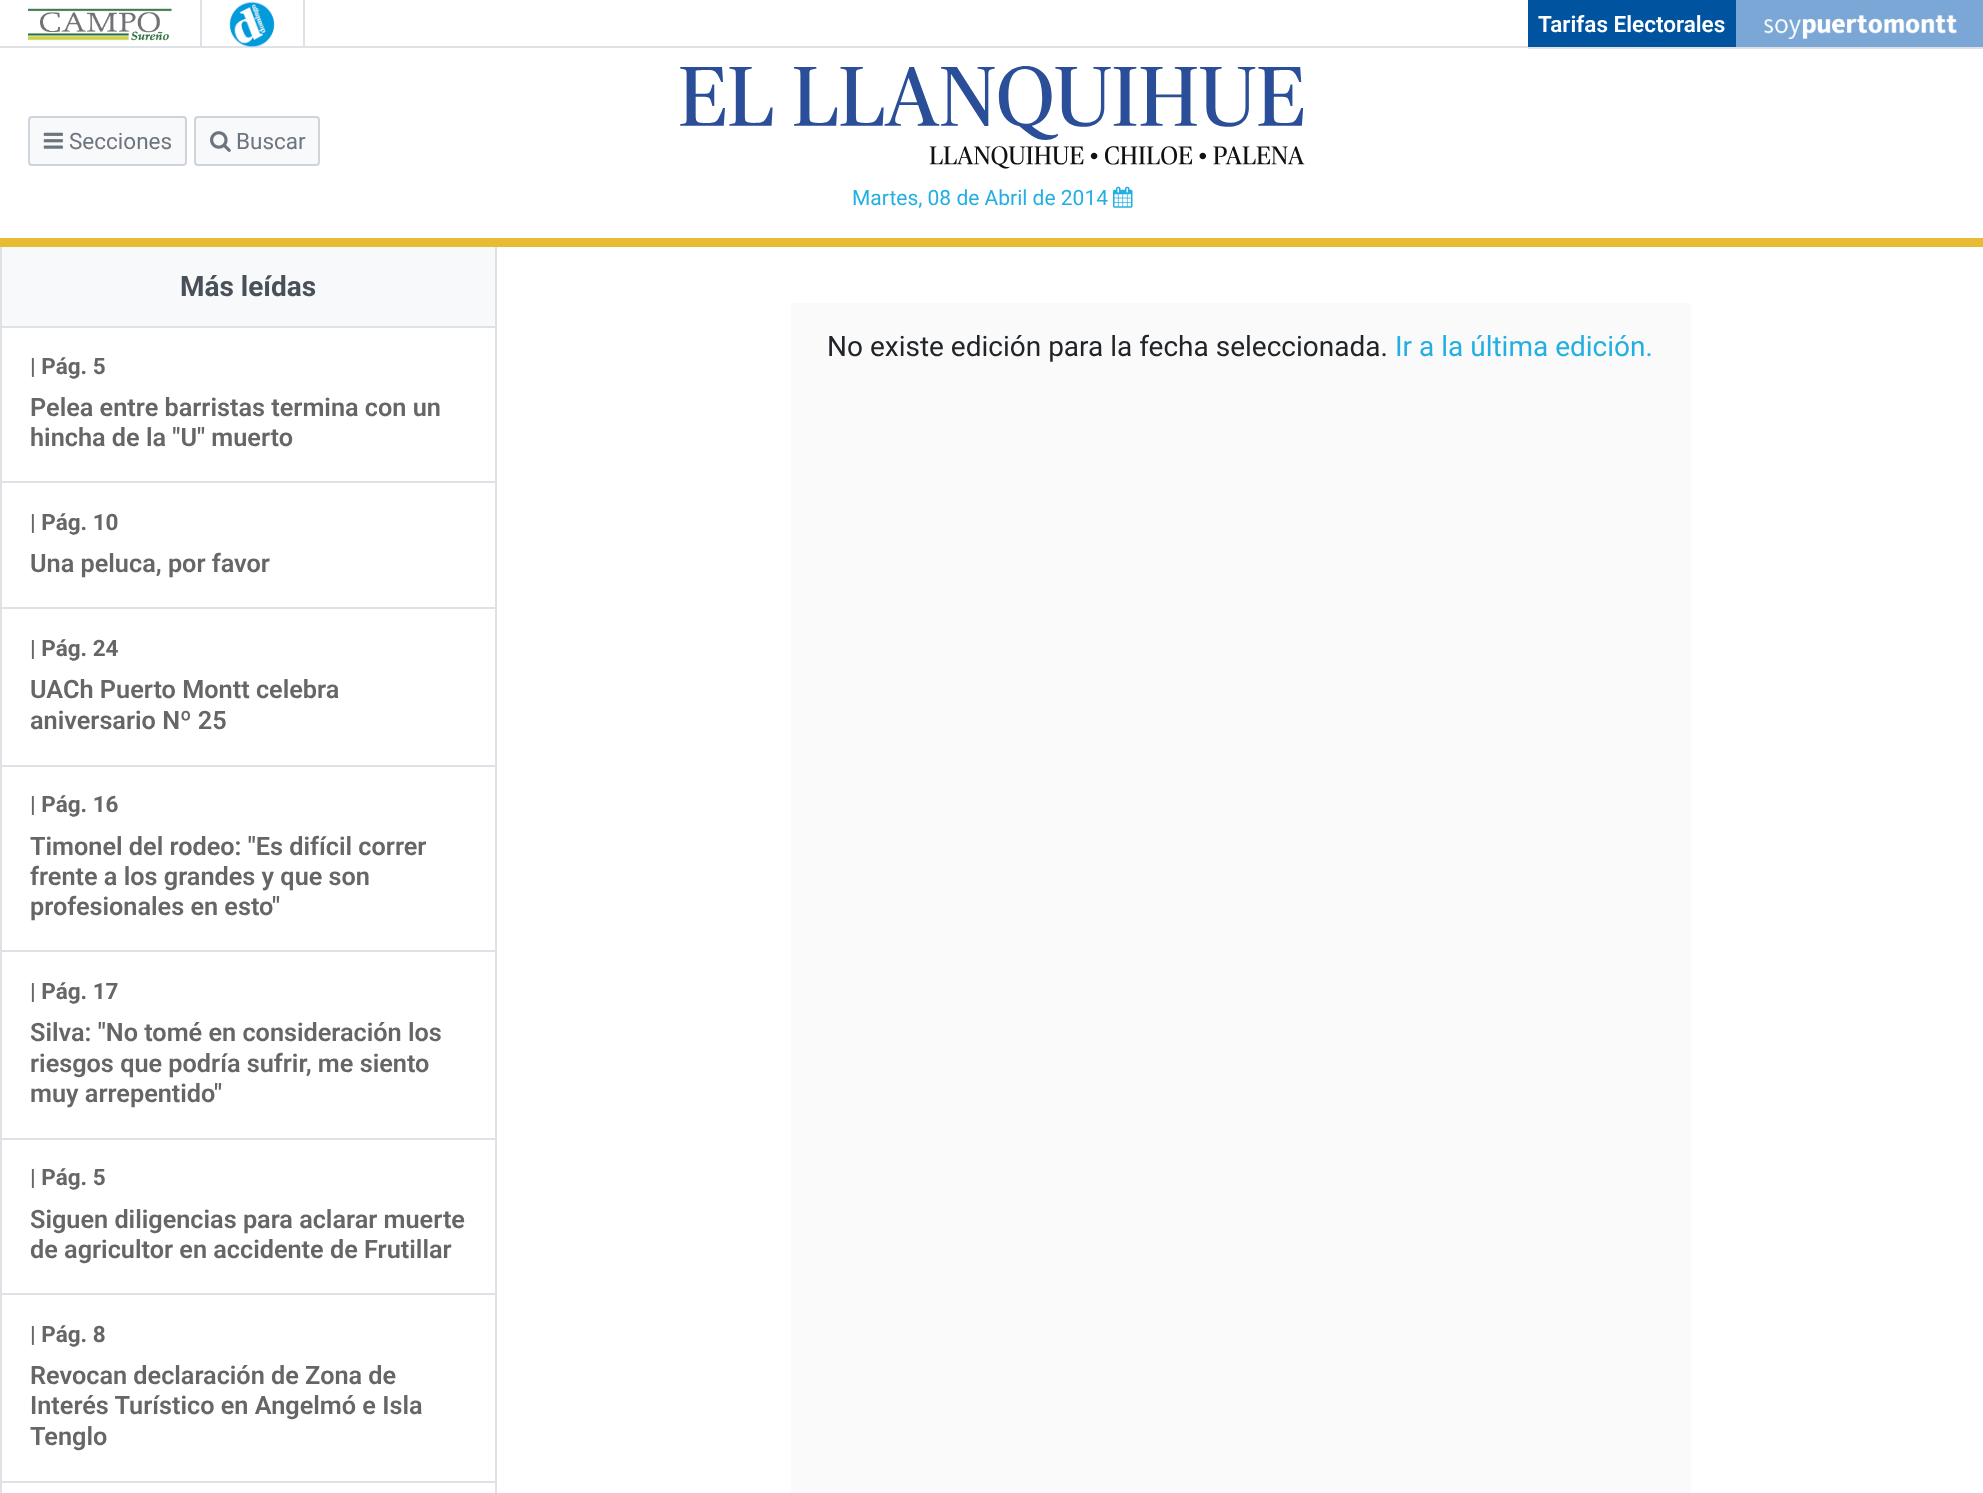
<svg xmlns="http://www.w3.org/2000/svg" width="1983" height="1493">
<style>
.a{font:600 22.5px Roboto;fill:#fff}
.b{font:22.5px Roboto;fill:#6c757d}
.c{font:21px Roboto;fill:#23afe2}
.d{font:bold 28px Roboto;fill:#495057}
.e{font:bold 22.5px Roboto;fill:#666}
.f{font:600 25.25px Roboto;fill:#666}
.g{font:28px Roboto;fill:#212529}
.h{font:28px Roboto;fill:#23afe2}
</style>
<rect width="100%" height="100%" fill="#fff"/>
<path fill="#dee2e6" d="M0 46h1528v2H0z"/>
<image href="1.png" x="28" y="8" width="144" height="33"/>
<path fill="#dee2e6" d="M303 0h2v47H303z"/>
<path fill="#dee2e6" d="M200 0h2v47H200z"/>
<image href="2.png" x="229" y="1" width="46" height="47"/>
<path fill="#dee2e6" d="M1528 47h455v2H1528z"/>
<path fill="#00549f" d="M1528 0h208v47H1528z"/>
<path fill="#7aa7d6" d="M1736 0h247v47H1736z"/>
<image href="3.png" x="1764" y="15" width="193" height="24"/>
<path fill="#e8bb34" d="M0 238h1983v9H0z"/>
<rect fill="#f8f9fa" stroke="#ced4da" stroke-width="2" x="29" y="117" width="157" height="48" rx="3"/>
<image href="4.png" x="43" y="132" width="20" height="17"/>
<rect fill="#f8f9fa" stroke="#ced4da" stroke-width="2" x="195" y="117" width="124" height="48" rx="3"/>
<image href="5.png" x="210" y="131" width="21" height="21"/>
<image href="6.png" x="680" y="66" width="625" height="103"/>
<image href="7.png" x="1113" y="186" width="20" height="22"/>
<path fill="#dee2e6" d="M495 247h2v1246H495z"/>
<path fill="#dee2e6" d="M0 247h2v1246H0z"/>
<path fill="#f8f9fa" d="M2 247h493v79H2z"/>
<path fill="#dee2e6" d="M2 326h493v2H2z"/>
<path fill="#dee2e6" d="M2 481h493v2H2z"/>
<path fill="#dee2e6" d="M2 607h493v2H2z"/>
<path fill="#dee2e6" d="M2 765h493v2H2z"/>
<path fill="#dee2e6" d="M2 950h493v2H2z"/>
<path fill="#dee2e6" d="M2 1138h493v2H2z"/>
<path fill="#dee2e6" d="M2 1293h493v2H2z"/>
<path fill="#dee2e6" d="M2 1481h493v2H2z"/>
<path fill="#fafafa" d="M791 303h900v1190H791z"/>
<text class="a" x="1538" y="32">Tarifas Electorales</text>
<text class="b" x="69" y="149">Secciones</text>
<text class="b" x="236" y="149">Buscar</text>
<text class="c" x="852" y="205">Martes, 08 de Abril de 2014</text>
<text class="d" x="180" y="296">Más leídas</text>
<text class="e" x="30" y="374">| Pág. 5</text>
<text class="f" x="30" y="416">Pelea entre barristas termina con un</text>
<text class="f" x="30" y="446">hincha de la "U" muerto</text>
<text class="e" x="30" y="530">| Pág. 10</text>
<text class="f" x="30" y="572">Una peluca, por favor</text>
<text class="e" x="30" y="656">| Pág. 24</text>
<text class="f" x="30" y="698">UACh Puerto Montt celebra</text>
<text class="f" x="30" y="729">aniversario Nº 25</text>
<text class="e" x="30" y="812">| Pág. 16</text>
<text class="f" x="30" y="855">Timonel del rodeo: "Es difícil correr</text>
<text class="f" x="30" y="885">frente a los grandes y que son</text>
<text class="f" x="30" y="915">profesionales en esto"</text>
<text class="e" x="30" y="999">| Pág. 17</text>
<text class="f" x="30" y="1041">Silva: "No tomé en consideración los</text>
<text class="f" x="30" y="1072">riesgos que podría sufrir, me siento</text>
<text class="f" x="30" y="1102">muy arrepentido"</text>
<text class="e" x="30" y="1185">| Pág. 5</text>
<text class="f" x="30" y="1228">Siguen diligencias para aclarar muerte</text>
<text class="f" x="30" y="1258">de agricultor en accidente de Frutillar</text>
<text class="e" x="30" y="1342">| Pág. 8</text>
<text class="f" x="30" y="1384">Revocan declaración de Zona de</text>
<text class="f" x="30" y="1414">Interés Turístico en Angelmó e Isla</text>
<text class="f" x="30" y="1445">Tenglo</text>
<text class="g" x="827" y="356">No existe edición para la fecha seleccionada.</text>
<text class="h" x="1395" y="356">Ir a la última edición.</text>
</svg>
